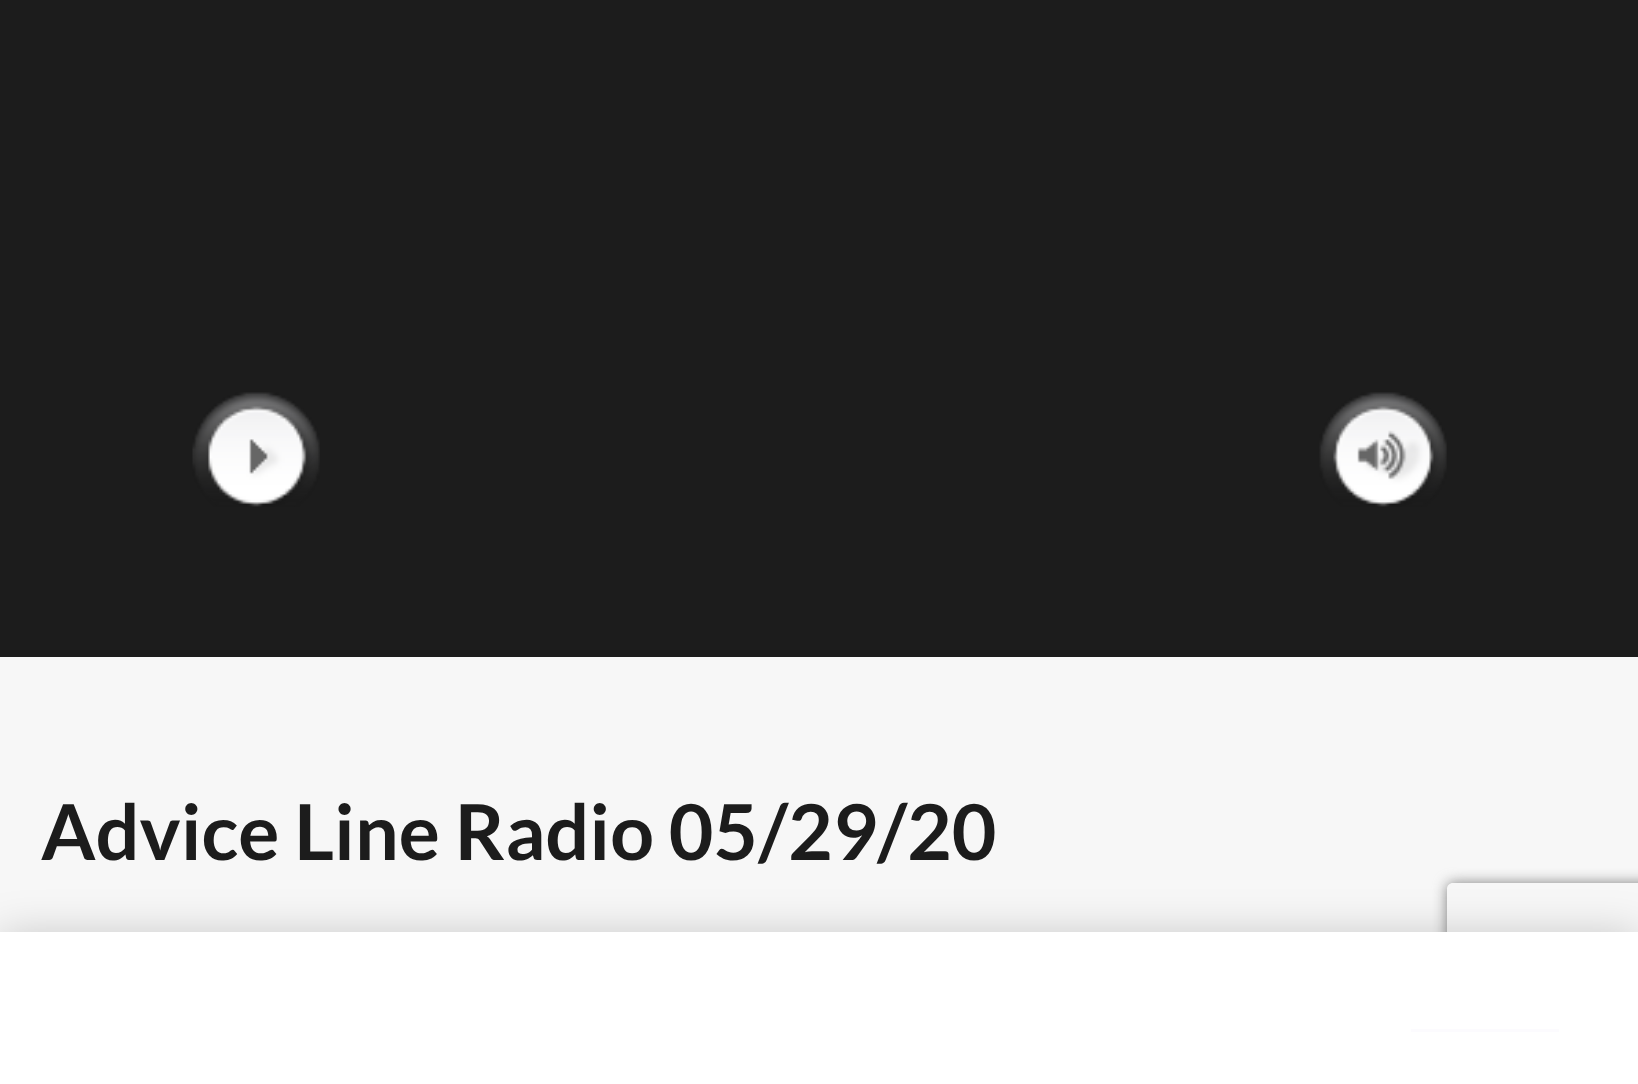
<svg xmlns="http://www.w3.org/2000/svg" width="1638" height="1084">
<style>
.a{font:bold 77px Lato;fill:#1c1c1c}
</style>
<defs>
<clipPath id="clip1"><path d="M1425 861h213v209h-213zm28 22h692c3.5 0 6 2.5 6 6v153c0 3.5-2.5 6-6 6h-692c-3.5 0-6-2.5-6-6v-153c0-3.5 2.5-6 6-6z" clip-rule="evenodd"/></clipPath>
</defs>
<rect width="100%" height="100%" fill="#f7f7f7"/>
<path fill="#1c1c1c" d="M0 0h1638v657H0z"/>
<image href="1.png" x="192" y="392" width="128" height="115"/>
<image href="2.png" x="1319" y="392" width="128" height="115"/>
<g clip-path="url(#clip1)">
<rect fill="#808080" filter="blur(7px)" x="1447" y="883" width="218" height="165" rx="6"/>
</g>
<path fill="#00000033" filter="blur(22px)" d="M0 935h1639v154H0z"/>
<path fill="#fff" d="M0 932h1638v152H0z"/>
<path fill="#fcfbfe" d="M1411 1029h148v3H1411z"/>
<text class="a" x="41" y="860">Advice Line Radio 05/29/20</text>
</svg>
